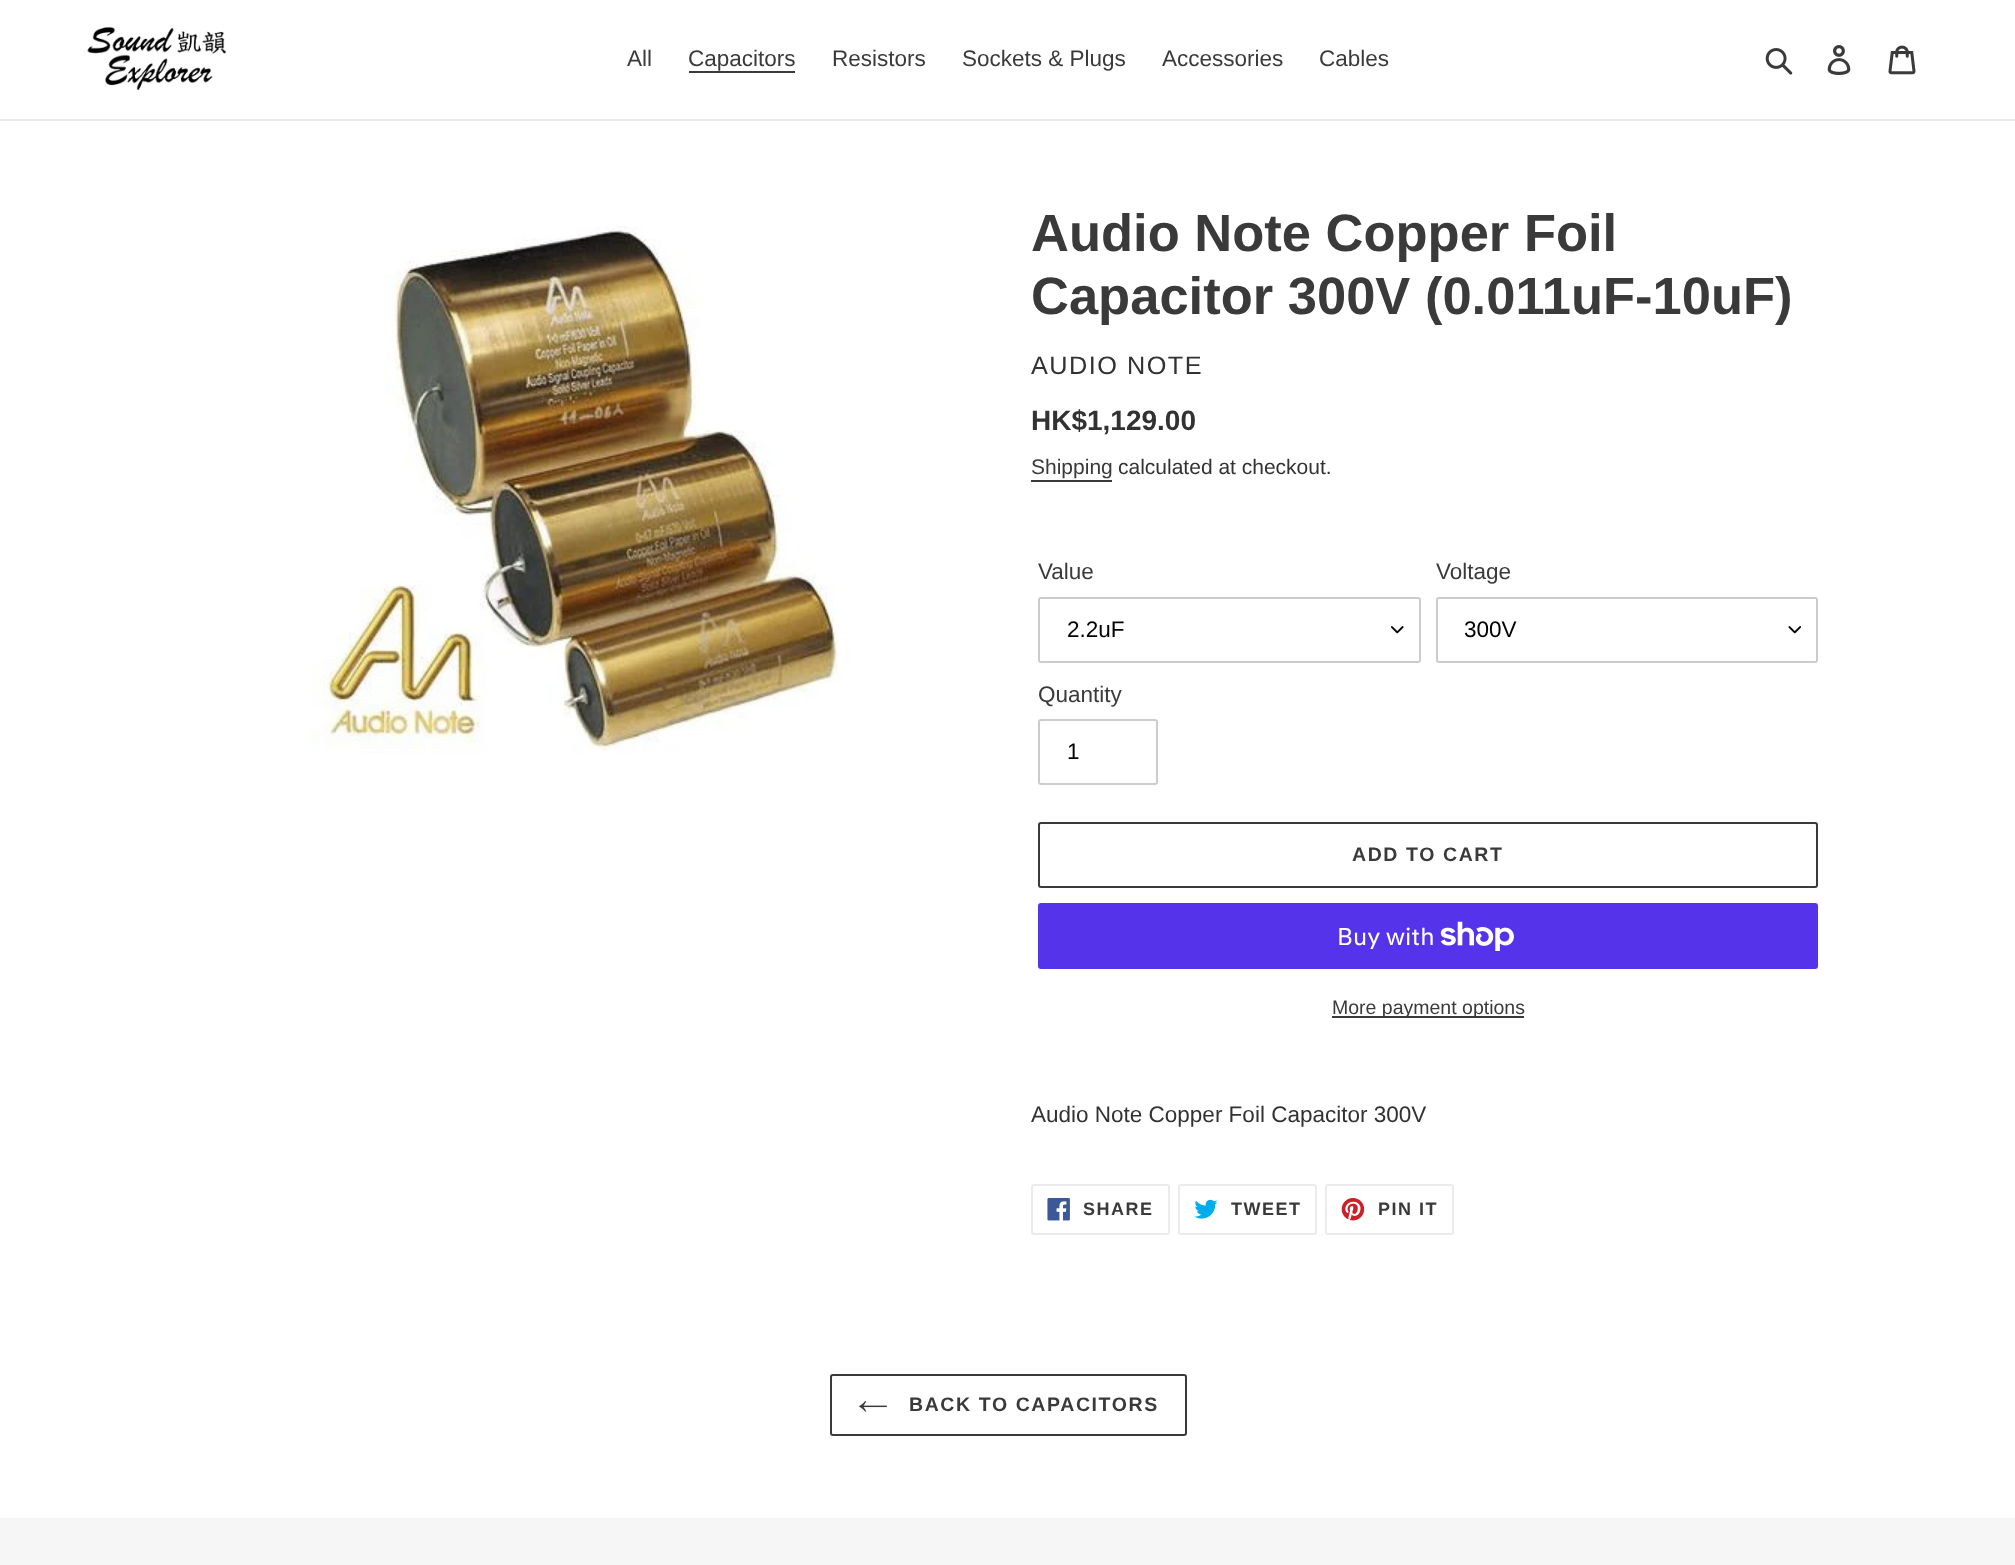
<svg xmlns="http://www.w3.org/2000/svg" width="2015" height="1565">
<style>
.a{font:22.5px Liberation Sans;fill:#3a3a3a}
.b{font:bold 52.5px Liberation Sans;fill:#3a3a3a}
.c{font:25.25px Liberation Sans;letter-spacing:1.5px;fill:#333232}
.d{font:bold 28px Liberation Sans;fill:#333232}
.e{font:21px Liberation Sans;fill:#3a3a3a}
.f{font:21px Liberation Sans;fill:#333232}
.g{font:22.5px Liberation Sans;fill:#000}
.h{font:bold 19.5px Liberation Sans;letter-spacing:1.6px;fill:#3a3a3a}
.i{font:24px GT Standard;fill:#fff}
.j{font:19.5px Liberation Sans;fill:#3a3a3a}
.k{font:22.5px Liberation Sans;fill:#333232}
.l{font:bold 18px Liberation Sans;letter-spacing:1.5px;fill:#3a3a3a}
</style>
<rect width="100%" height="100%" fill="#fff"/>
<path fill="#ebebeb" d="M0 119h2015v2H0z"/>
<image href="1.png" x="87" y="27" width="139" height="63"/>
<path fill="#3a3a3a" d="M689 71h106v2H689z"/>
<image href="2.png" x="1765" y="48" width="28" height="27"/>
<image href="3.png" x="1827" y="45" width="24" height="30"/>
<image href="4.png" x="1888" y="45" width="28" height="30"/>
<image href="5.png" x="312" y="226" width="526" height="528"/>
<path fill="#3a3a3a" d="M1031 480h81v2H1031z"/>
<image href="6.png" x="1391" y="626" width="13" height="8"/>
<rect fill="none" stroke="#ccc" stroke-width="2" x="1039" y="598" width="381" height="64" rx="2"/>
<image href="7.png" x="1788" y="626" width="13" height="8"/>
<rect fill="none" stroke="#ccc" stroke-width="2" x="1437" y="598" width="380" height="64" rx="2"/>
<rect fill="none" stroke="#ccc" stroke-width="2" x="1039" y="720" width="118" height="64" rx="2"/>
<rect fill="none" stroke="#3a3a3a" stroke-width="2" x="1039" y="823" width="778" height="64" rx="2"/>
<rect fill="#5433eb" x="1038" y="903" width="780" height="66" rx="3"/>
<image href="8.png" x="1440" y="921" width="74" height="30"/>
<path fill="#3a3a3a" d="M1332 1016h192v2H1332z"/>
<rect fill="none" stroke="#ebebeb" stroke-width="2" x="1032" y="1185" width="137" height="49" rx="2"/>
<image href="9.png" x="1047" y="1198" width="23" height="23"/>
<rect fill="none" stroke="#ebebeb" stroke-width="2" x="1179" y="1185" width="137" height="49" rx="2"/>
<image href="10.png" x="1194" y="1199" width="24" height="20"/>
<rect fill="none" stroke="#ebebeb" stroke-width="2" x="1326" y="1185" width="127" height="49" rx="2"/>
<image href="11.png" x="1341" y="1198" width="24" height="23"/>
<rect fill="none" stroke="#3a3a3a" stroke-width="2" x="831" y="1375" width="355" height="60" rx="2"/>
<image href="12.png" x="859" y="1401" width="28" height="11"/>
<path fill="#f6f6f6" d="M0 1518h2015v47H0z"/>
<text class="a" x="627" y="66">All</text>
<text class="a" x="688" y="66">Capacitors</text>
<text class="a" x="832" y="66">Resistors</text>
<text class="a" x="962" y="66">Sockets &amp; Plugs</text>
<text class="a" x="1162" y="66">Accessories</text>
<text class="a" x="1319" y="66">Cables</text>
<text class="b" x="1031" y="251">Audio Note Copper Foil</text>
<text class="b" x="1031" y="314">Capacitor 300V (0.011uF-10uF)</text>
<text class="c" x="1031" y="374">AUDIO NOTE</text>
<text class="d" x="1031" y="430">HK$1,129.00</text>
<text class="e" x="1031" y="474">Shipping</text>
<text class="f" x="1118" y="474">calculated at checkout.</text>
<text class="a" x="1038" y="579">Value</text>
<text class="g" x="1067" y="637">2.2uF</text>
<text class="a" x="1436" y="579">Voltage</text>
<text class="g" x="1464" y="637">300V</text>
<text class="a" x="1038" y="702">Quantity</text>
<text class="g" x="1067" y="759">1</text>
<text class="h" x="1352" y="861">ADD TO CART</text>
<text class="i" x="1337" y="945">Buy with</text>
<text class="j" x="1332" y="1014">More payment options</text>
<text class="k" x="1031" y="1122">Audio Note Copper Foil Capacitor 300V</text>
<text class="l" x="1083" y="1215">SHARE</text>
<text class="l" x="1231" y="1215">TWEET</text>
<text class="l" x="1378" y="1215">PIN IT</text>
<text class="h" x="909" y="1411">BACK TO CAPACITORS</text>
</svg>
